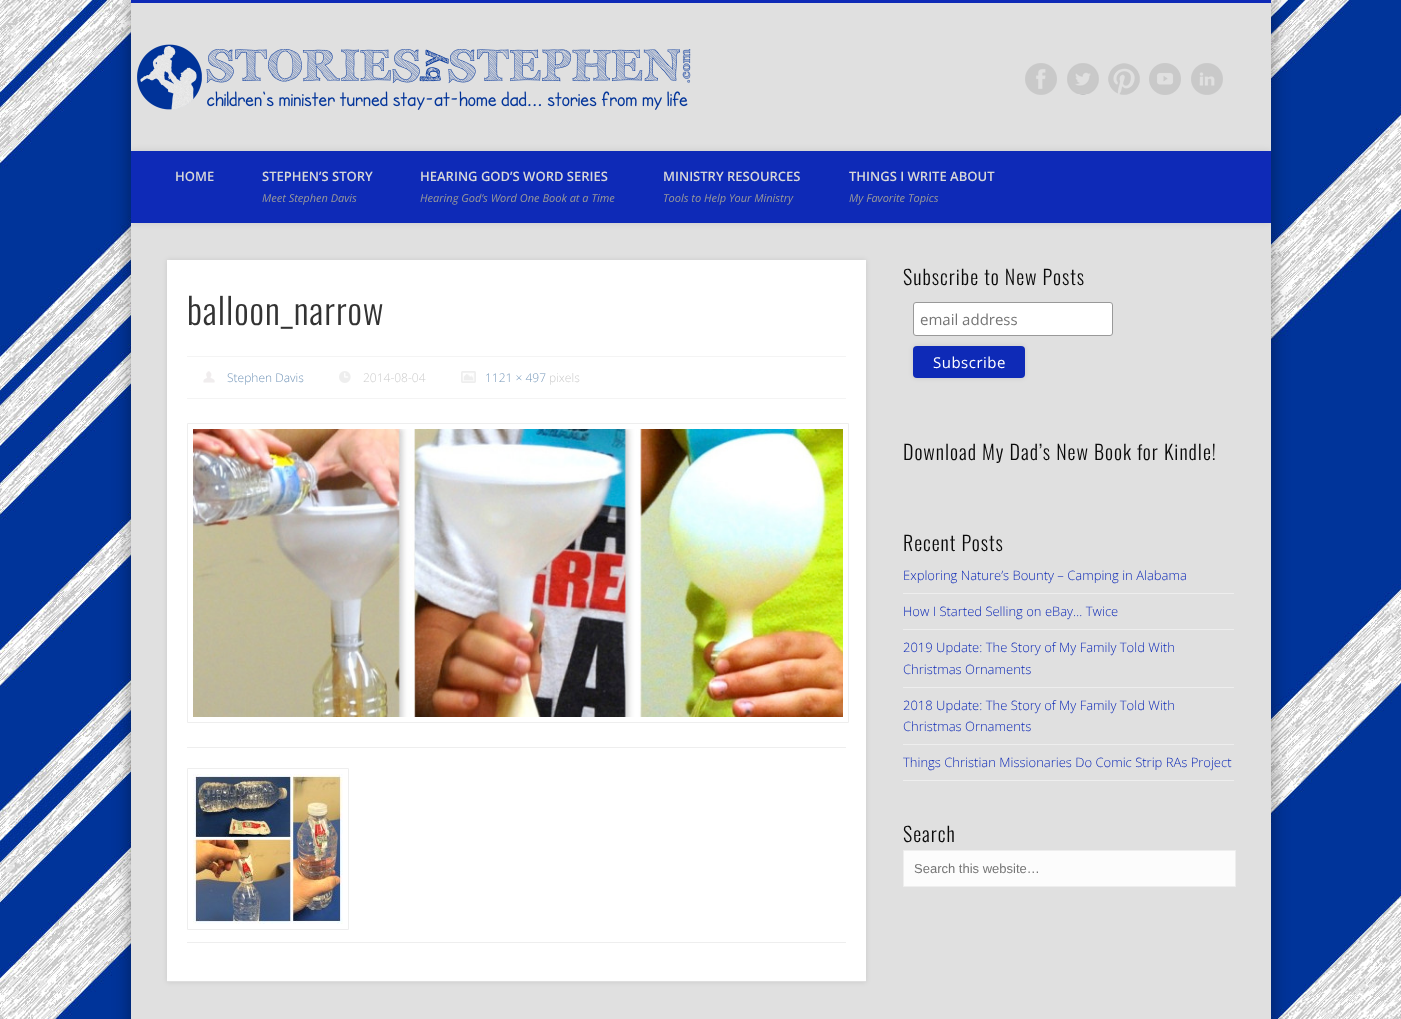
<svg xmlns="http://www.w3.org/2000/svg" width="1401" height="1019">
<style>
.a{font:600 13px Open Sans;fill:#d8d8d8}
.b{font:italic 11px Open Sans;fill:#999}
.c{font:300 36px Oswald;letter-spacing:1px;fill:#333}
.d{font:300 12px Open Sans;fill:#7597b9}
.e{font:300 12px Open Sans;fill:#ccc}
.f{font:300 20px Oswald;letter-spacing:1px;fill:#0a0a0a}
.g{font:15px Open Sans;fill:#757575}
.h{font:15px Open Sans;letter-spacing:0.5px;fill:#fff}
.i{font:300 13px Open Sans;fill:#0e2ab7}
.j{font:13px Liberation Sans;fill:#757575}
</style>
<defs>
<clipPath id="clip1"><path d="M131 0h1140v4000H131z"/></clipPath>
</defs>
<rect width="100%" height="100%" fill="#fff"/>
<image href="1.png" x="0" y="0" width="1401" height="1019"/>
<path fill="#00000066" filter="blur(9px)" d="M131 0h1140v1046H131z"/>
<path fill="#e0e0e0" d="M131 3h1140v1016H131z"/>
<path fill="#0e2ab7" d="M131 0h1140v3H131z"/>
<image href="2.png" x="137" y="44" width="554" height="66"/>
<image href="3.png" x="1025" y="63" width="32" height="32"/>
<image href="4.png" x="1067" y="63" width="32" height="32"/>
<image href="5.png" x="1108" y="63" width="32" height="32"/>
<image href="6.png" x="1149" y="63" width="32" height="32"/>
<image href="7.png" x="1191" y="63" width="32" height="32"/>
<g clip-path="url(#clip1)">
<path fill="#0000001a" filter="blur(3.5px)" d="M131 151h1140v72H131z"/>
</g>
<path fill="#0e2ab7" d="M131 151h1140v72H131z"/>
<path fill="#0000001a" filter="blur(2.5px)" d="M167 260h699v722H167z"/>
<path fill="#fff" d="M167 260h699v721H167z"/>
<path fill="#dedede" d="M167 981h699v1H167z"/>
<path fill="#f4f4f4" d="M187 356h659v1H187z"/>
<path fill="#f4f4f4" d="M187 398h659v1H187z"/>
<image href="8.png" x="203" y="371" width="12" height="12"/>
<image href="9.png" x="339" y="371" width="12" height="12"/>
<image href="10.png" x="461" y="371" width="15" height="12"/>
<path fill="none" stroke="#eee" d="M187.5 423.5h661v299H187.5z"/>
<image href="11.png" x="193" y="429" width="650" height="288"/>
<path fill="#eee" d="M187 747h659v1H187z"/>
<path fill="#eee" d="M187 942h659v1H187z"/>
<path fill="none" stroke="#eee" d="M187.5 768.5h161v161H187.5z"/>
<image href="12.png" x="193" y="774" width="150" height="150"/>
<rect fill="#fff" stroke="#999" x="913.5" y="302.5" width="199" height="33" rx="2.5"/>
<rect fill="#0000001a" filter="blur(2.5px)" x="913" y="346" width="112" height="32" rx="4"/>
<rect fill="#0e2ab7" x="913" y="346" width="112" height="32" rx="4"/>
<path fill="#eee" d="M903 593h331v1H903z"/>
<path fill="#eee" d="M903 629h331v1H903z"/>
<path fill="#eee" d="M903 687h331v1H903z"/>
<path fill="#eee" d="M903 744h331v1H903z"/>
<path fill="#eee" d="M903 780h331v1H903z"/>
<path fill="#fcfcfc" stroke="#eee" d="M903.5 850.5h332v36H903.5z"/>
<text class="a" x="175" y="181">HOME</text>
<text class="a" x="262" y="181">STEPHEN’S STORY</text>
<text class="b" x="262" y="202">Meet Stephen Davis</text>
<text class="a" x="420" y="181">HEARING GOD’S WORD SERIES</text>
<text class="b" x="420" y="202">Hearing God’s Word One Book at a Time</text>
<text class="a" x="663" y="181">MINISTRY RESOURCES</text>
<text class="b" x="663" y="202">Tools to Help Your Ministry</text>
<text class="a" x="849" y="181">THINGS I WRITE ABOUT</text>
<text class="b" x="849" y="202">My Favorite Topics</text>
<text class="c" x="187" y="325">balloon_narrow</text>
<text class="d" x="227" y="382">Stephen Davis</text>
<text class="e" x="363" y="382">2014-08-04</text>
<text class="d" x="485" y="382">1121 × 497</text>
<text class="e" x="549" y="382">pixels</text>
<text class="f" x="903" y="285">Subscribe to New Posts</text>
<text class="g" x="920" y="325">email address</text>
<text class="h" x="933" y="368">Subscribe</text>
<text class="f" x="903" y="460">Download My Dad’s New Book for Kindle!</text>
<text class="f" x="903" y="551">Recent Posts</text>
<text class="i" x="903" y="580">Exploring Nature’s Bounty – Camping in Alabama</text>
<text class="i" x="903" y="616">How I Started Selling on eBay… Twice</text>
<text class="i" x="903" y="652">2019 Update: The Story of My Family Told With</text>
<text class="i" x="903" y="674">Christmas Ornaments</text>
<text class="i" x="903" y="710">2018 Update: The Story of My Family Told With</text>
<text class="i" x="903" y="731">Christmas Ornaments</text>
<text class="i" x="903" y="767">Things Christian Missionaries Do Comic Strip RAs Project</text>
<text class="f" x="903" y="842">Search</text>
<text class="j" x="914" y="873">Search this website…</text>
</svg>
